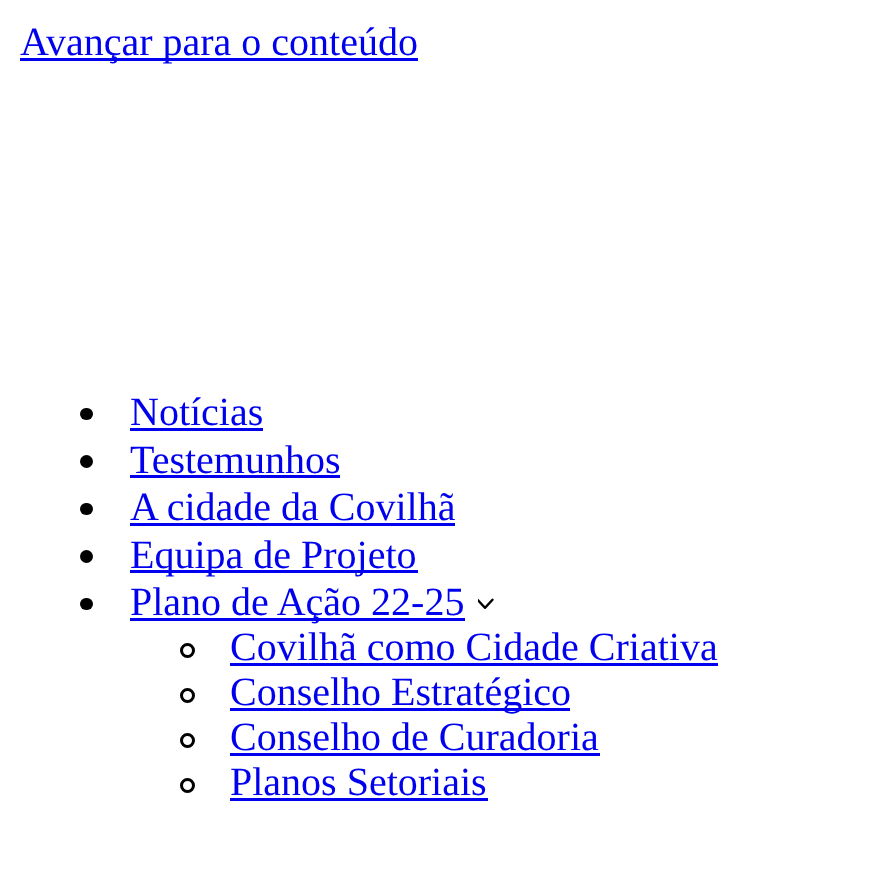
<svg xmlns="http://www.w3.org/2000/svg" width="888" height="884">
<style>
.a{font:40px Liberation Serif;fill:#00e}
</style>
<rect width="100%" height="100%" fill="#fff"/>
<path fill="#00e" d="M20 58h398v3H20z"/>
<rect fill="#000" x="80" y="408" width="13" height="12" rx="6"/>
<path fill="#00e" d="M130 428h133v3H130z"/>
<circle fill="#000" cx="86.5" cy="461.5" r="6.5"/>
<path fill="#00e" d="M130 475h210v3H130z"/>
<rect fill="#000" x="80" y="503" width="13" height="12" rx="6"/>
<path fill="#00e" d="M130 523h325v3H130z"/>
<circle fill="#000" cx="86.5" cy="556.5" r="6.5"/>
<path fill="#00e" d="M130 570h288v3H130z"/>
<rect fill="#000" x="80" y="598" width="13" height="12" rx="6"/>
<path fill="#00e" d="M130 618h335v3H130z"/>
<image href="1.png" x="478" y="598" width="16" height="11"/>
<circle fill="none" stroke="#000" stroke-width="3" cx="187.5" cy="650.5" r="6"/>
<path fill="#00e" d="M230 663h488v3H230z"/>
<circle fill="none" stroke="#000" stroke-width="3" cx="187.5" cy="695.5" r="6"/>
<path fill="#00e" d="M230 708h340v3H230z"/>
<circle fill="none" stroke="#000" stroke-width="3" cx="187.5" cy="740.5" r="6"/>
<path fill="#00e" d="M230 753h370v3H230z"/>
<circle fill="none" stroke="#000" stroke-width="3" cx="187.5" cy="785.5" r="6"/>
<path fill="#00e" d="M230 798h258v3H230z"/>
<text class="a" x="20" y="55">Avançar para o conteúdo</text>
<text class="a" x="130" y="425">Notícias</text>
<text class="a" x="130" y="473">Testemunhos</text>
<text class="a" x="130" y="520">A cidade da Covilhã</text>
<text class="a" x="130" y="568">Equipa de Projeto</text>
<text class="a" x="130" y="615">Plano de Ação 22-25</text>
<text class="a" x="230" y="660">Covilhã como Cidade Criativa</text>
<text class="a" x="230" y="705">Conselho Estratégico</text>
<text class="a" x="230" y="750">Conselho de Curadoria</text>
<text class="a" x="230" y="795">Planos Setoriais</text>
</svg>
